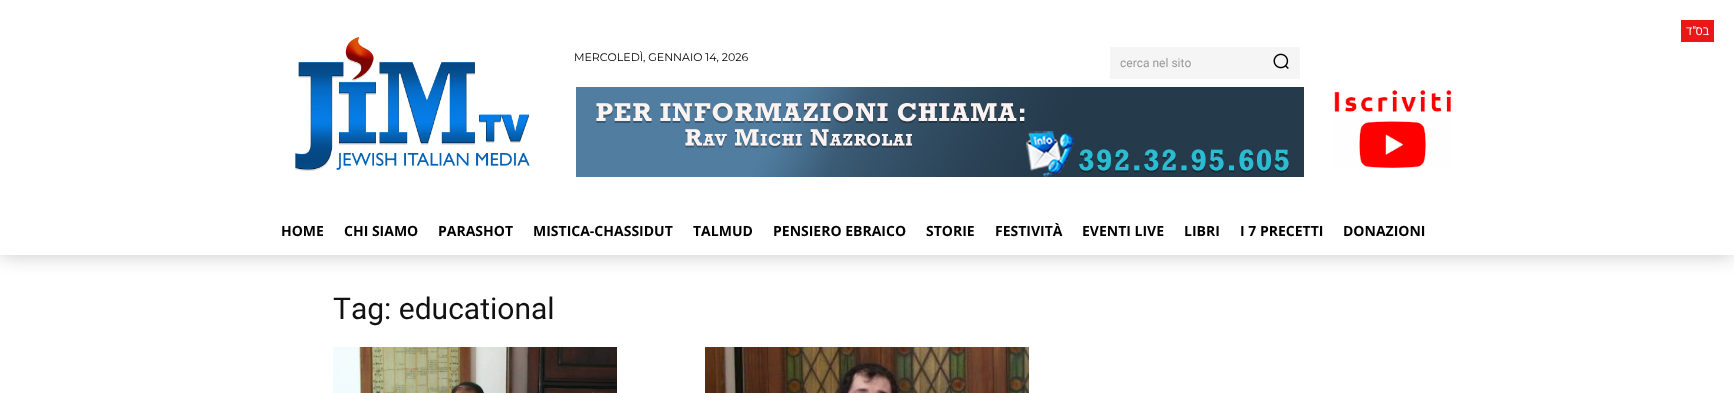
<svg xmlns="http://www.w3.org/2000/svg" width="1734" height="393">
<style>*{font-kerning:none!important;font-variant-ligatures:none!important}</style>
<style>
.a{font:12px Open Sans;direction:rtl;fill:#fff}
.b{font:12px Roboto;direction:rtl;fill:#fff}
.c{font:100 11px Montserrat;fill:#000}
.d{font:12px Roboto;fill:#999}
.e{font:bold 14px Open Sans;fill:#000}
.f{font:30px Roboto;fill:#111}
</style>
<defs>
<clipPath id="clip1"><path d="M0 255h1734v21H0z"/></clipPath>
</defs>
<rect width="100%" height="100%" fill="#fff"/>
<g clip-path="url(#clip1)">
<path fill="#c6c6c6" filter="blur(10px)" d="M0 0h1734v255H0z"/>
</g>
<path fill="#ea1717" d="M1681 20h33v22H1681z"/>
<image href="1.png" x="295" y="37" width="235" height="134"/>
<path fill="#f5f5f5" d="M1110 47h190v32H1110z"/>
<image href="2.png" x="1273" y="53" width="16" height="16"/>
<image href="3.png" x="576" y="87" width="728" height="90"/>
<image href="4.png" x="1334" y="90" width="118" height="79"/>
<image href="5.png" x="333" y="347" width="284" height="46"/>
<image href="6.png" x="705" y="347" width="324" height="46"/>
<text class="a" x="1692" y="35">ד</text>
<text class="b" x="1696" y="35">"</text>
<text class="a" x="1709" y="35">בס</text>
<text class="c" x="574" y="61">MERCOLEDÌ, GENNAIO 14, 2026</text>
<text class="d" x="1120" y="67">cerca nel sito</text>
<text class="e" x="281" y="236">HOME</text>
<text class="e" x="344" y="236">CHI SIAMO</text>
<text class="e" x="438" y="236">PARASHOT</text>
<text class="e" x="533" y="236">MISTICA-CHASSIDUT</text>
<text class="e" x="693" y="236">TALMUD</text>
<text class="e" x="773" y="236">PENSIERO EBRAICO</text>
<text class="e" x="926" y="236">STORIE</text>
<text class="e" x="995" y="236">FESTIVITÀ</text>
<text class="e" x="1082" y="236">EVENTI LIVE</text>
<text class="e" x="1184" y="236">LIBRI</text>
<text class="e" x="1240" y="236">I 7 PRECETTI</text>
<text class="e" x="1343" y="236">DONAZIONI</text>
<text class="f" x="333" y="319">Tag: educational</text>
</svg>
